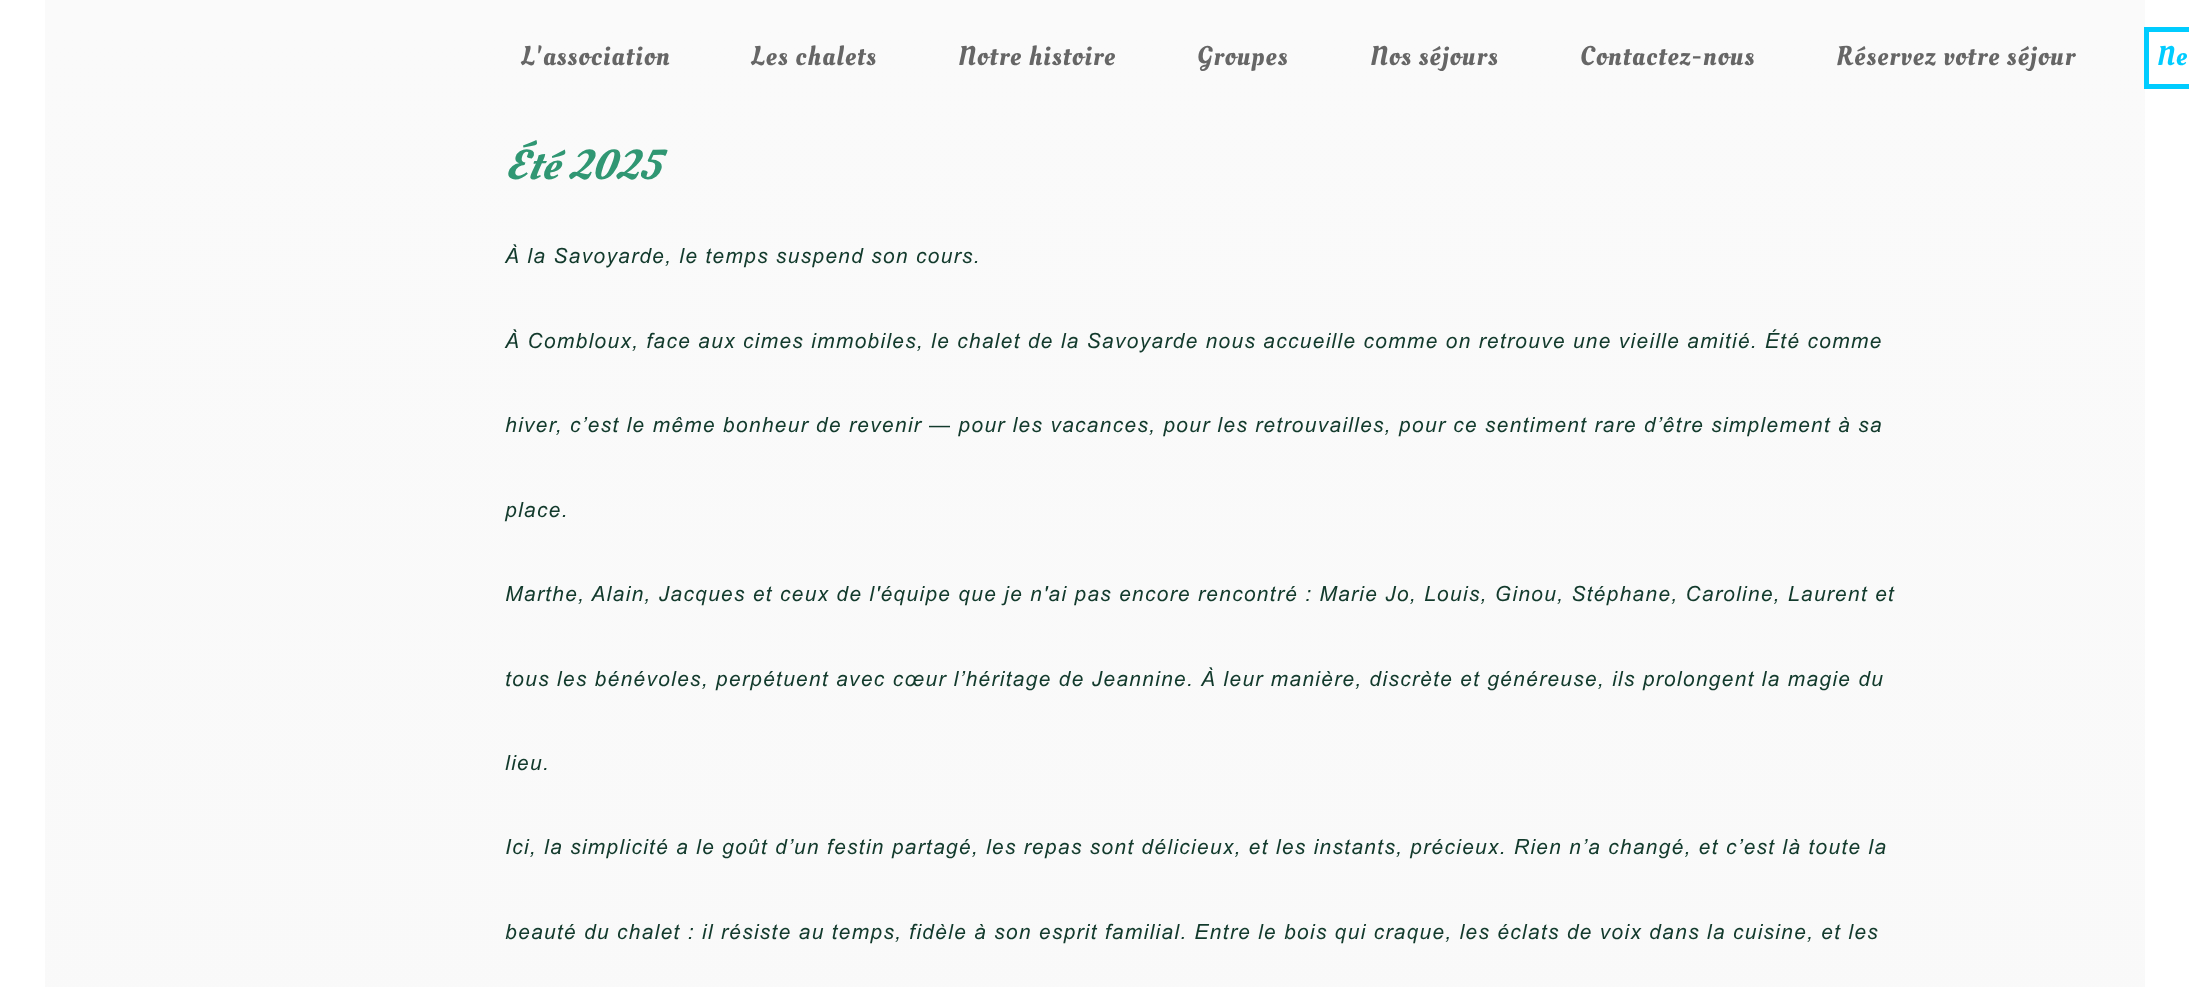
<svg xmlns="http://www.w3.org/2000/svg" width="2189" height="987">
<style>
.a{font:27px Oleo Script;letter-spacing:1.26px;fill:#666}
.b{font:27px Oleo Script;letter-spacing:1.26px;fill:#0cf}
.c{font:italic 42px Oleo Script;letter-spacing:1.26px;fill:#309773}
.d{font:italic 21px Arial;letter-spacing:1.26px;fill:#123a2c}
</style>
<defs>
<linearGradient id="g1" gradientUnits="userSpaceOnUse" x1="1095" y1="0" x2="1095" y2="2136"><stop offset="0.01" stop-color="#fafafa"/><stop offset="0.54" stop-color="#f9f9f9"/><stop offset="1" stop-color="#fafafa"/></linearGradient>
</defs>
<rect width="100%" height="100%" fill="#fff"/>
<path fill="url(#g1)" d="M45 0h2100v987H45z"/>
<path fill="#0cf" d="M2144 27h5v62H2144z"/>
<path fill="#0cf" d="M2144 27h45v5H2144z"/>
<path fill="#0cf" d="M2144 84h45v5H2144z"/>
<text class="a" x="521" y="65">L'association</text>
<text class="a" x="751" y="65">Les chalets</text>
<text class="a" x="958" y="65">Notre histoire</text>
<text class="a" x="1197" y="65">Groupes</text>
<text class="a" x="1370" y="65">Nos séjours</text>
<text class="a" x="1580" y="65">Contactez-nous</text>
<text class="a" x="1836" y="65">Réservez votre séjour</text>
<text class="b" x="2157" y="65">Ne</text>
<text class="c" x="505" y="179">Été 2025</text>
<text class="d" x="505" y="263">À la Savoyarde, le temps suspend son cours.</text>
<text class="d" x="505" y="348">À Combloux, face aux cimes immobiles, le chalet de la Savoyarde nous accueille comme on retrouve une vieille amitié. Été comme</text>
<text class="d" x="505" y="432">hiver, c’est le même bonheur de revenir — pour les vacances, pour les retrouvailles, pour ce sentiment rare d’être simplement à sa</text>
<text class="d" x="505" y="517">place.</text>
<text class="d" x="505" y="601">Marthe, Alain, Jacques et ceux de l'équipe que je n'ai pas encore rencontré : Marie Jo, Louis, Ginou, Stéphane, Caroline, Laurent et</text>
<text class="d" x="505" y="686">tous les bénévoles, perpétuent avec cœur l’héritage de Jeannine. À leur manière, discrète et généreuse, ils prolongent la magie du</text>
<text class="d" x="505" y="770">lieu.</text>
<text class="d" x="505" y="854">Ici, la simplicité a le goût d’un festin partagé, les repas sont délicieux, et les instants, précieux. Rien n’a changé, et c’est là toute la</text>
<text class="d" x="505" y="939">beauté du chalet : il résiste au temps, fidèle à son esprit familial. Entre le bois qui craque, les éclats de voix dans la cuisine, et les</text>
</svg>
